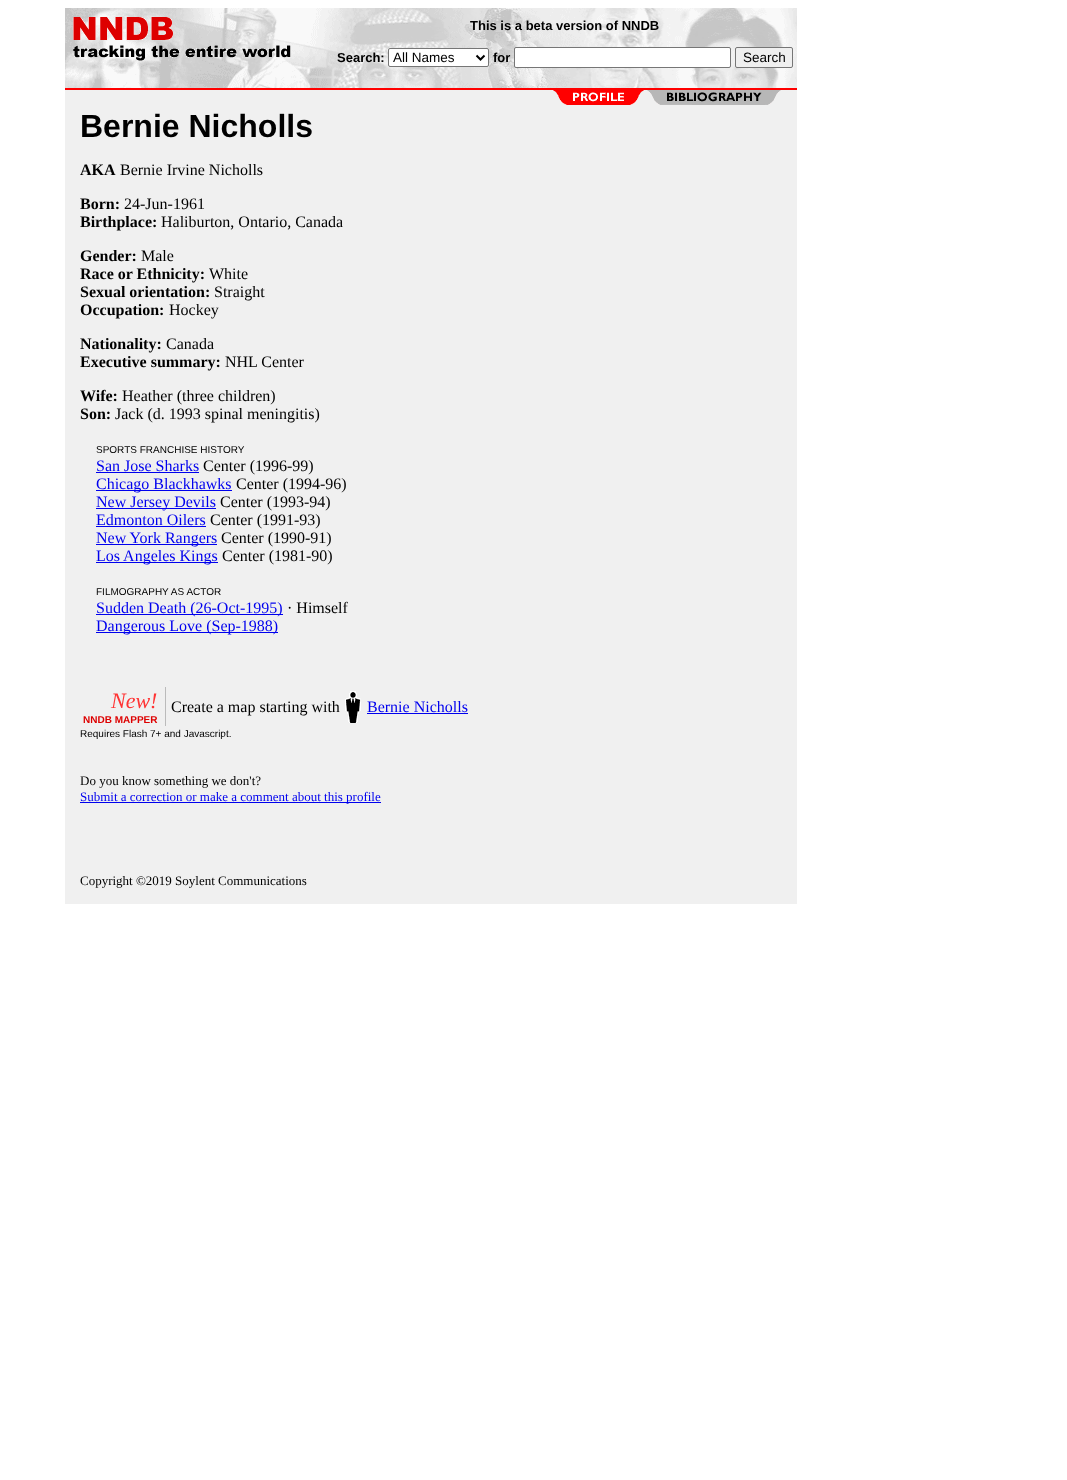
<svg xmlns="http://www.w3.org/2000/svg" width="1067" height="1480">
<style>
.a{font:bold 13px Liberation Sans;fill:#000}
.b{font:13.5px Liberation Sans;fill:#000}
.c{font:bold 32px Liberation Sans;fill:#000}
.d{font:bold 16px Liberation Serif;fill:#000}
.e{font:16px Liberation Serif;fill:#000}
.f{font:10px Liberation Sans;fill:#000}
.g{font:16px Liberation Serif;fill:#00e}
.h{font:italic 22px Liberation Serif;fill:#f33}
.i{font:bold 10px Liberation Sans;fill:#d00}
.j{font:13px Liberation Serif;fill:#000}
.k{font:13px Liberation Serif;fill:#00e}
</style>
<rect width="100%" height="100%" fill="#fff"/>
<image href="1.png" x="65" y="8" width="732" height="80"/>
<image href="2.png" x="73" y="17" width="218" height="44"/>
<rect fill="#fff" stroke="#767676" x="388.5" y="48.5" width="100" height="18" rx="1.5"/>
<path fill="none" stroke="#000" stroke-width="2" d="M476.5 55.5l4 4l4-4"/>
<rect fill="#fff" stroke="#767676" x="514.5" y="47.5" width="216" height="20" rx="1.5"/>
<rect fill="#efefef" stroke="#767676" x="735.5" y="47.5" width="57" height="20" rx="1.5"/>
<path fill="#f00" d="M65 88h732v2H65z"/>
<path fill="#f0f0f0" d="M65 90h732v814H65z"/>
<image href="3.png" x="553" y="90" width="228" height="15"/>
<path fill="#00e" d="M96 472h103v1H96z"/>
<path fill="#00e" d="M96 490h136v1H96z"/>
<path fill="#00e" d="M96 508h120v1H96z"/>
<path fill="#00e" d="M96 526h110v1H96z"/>
<path fill="#00e" d="M96 544h121v1H96z"/>
<path fill="#00e" d="M96 562h122v1H96z"/>
<path fill="#00e" d="M96 614h187v1H96z"/>
<path fill="#00e" d="M96 632h182v1H96z"/>
<path fill="#bbb" d="M165 687h1v39H165z"/>
<image href="4.png" x="345" y="691" width="16" height="32"/>
<path fill="#00e" d="M367 713h101v1H367z"/>
<path fill="#00e" d="M80 802h301v1H80z"/>
<text class="a" x="470" y="30">This is a beta version of NNDB</text>
<text class="a" x="337" y="62">Search:</text>
<text class="b" x="393" y="62">All Names</text>
<text class="a" x="493" y="62">for</text>
<text class="b" x="743" y="62">Search</text>
<text class="c" x="80" y="137">Bernie Nicholls</text>
<text class="d" x="80" y="175">AKA</text>
<text class="e" x="120" y="175">Bernie Irvine Nicholls</text>
<text class="d" x="80" y="209">Born:</text>
<text class="e" x="124" y="209">24-Jun-1961</text>
<text class="d" x="80" y="227">Birthplace:</text>
<text class="e" x="161" y="227">Haliburton, Ontario, Canada</text>
<text class="d" x="80" y="261">Gender:</text>
<text class="e" x="141" y="261">Male</text>
<text class="d" x="80" y="279">Race or Ethnicity:</text>
<text class="e" x="209" y="279">White</text>
<text class="d" x="80" y="297">Sexual orientation:</text>
<text class="e" x="214" y="297">Straight</text>
<text class="d" x="80" y="315">Occupation:</text>
<text class="e" x="169" y="315">Hockey</text>
<text class="d" x="80" y="349">Nationality:</text>
<text class="e" x="166" y="349">Canada</text>
<text class="d" x="80" y="367">Executive summary:</text>
<text class="e" x="225" y="367">NHL Center</text>
<text class="d" x="80" y="401">Wife:</text>
<text class="e" x="122" y="401">Heather (three children)</text>
<text class="d" x="80" y="419">Son:</text>
<text class="e" x="115" y="419">Jack (d. 1993 spinal meningitis)</text>
<text class="f" x="96" y="453">SPORTS FRANCHISE HISTORY</text>
<text class="g" x="96" y="471">San Jose Sharks</text>
<text class="e" x="203" y="471">Center (1996-99)</text>
<text class="g" x="96" y="489">Chicago Blackhawks</text>
<text class="e" x="236" y="489">Center (1994-96)</text>
<text class="g" x="96" y="507">New Jersey Devils</text>
<text class="e" x="220" y="507">Center (1993-94)</text>
<text class="g" x="96" y="525">Edmonton Oilers</text>
<text class="e" x="210" y="525">Center (1991-93)</text>
<text class="g" x="96" y="543">New York Rangers</text>
<text class="e" x="221" y="543">Center (1990-91)</text>
<text class="g" x="96" y="561">Los Angeles Kings</text>
<text class="e" x="222" y="561">Center (1981-90)</text>
<text class="f" x="96" y="595">FILMOGRAPHY AS ACTOR</text>
<text class="g" x="96" y="613">Sudden Death (26-Oct-1995)</text>
<text class="e" x="287" y="613">· Himself</text>
<text class="g" x="96" y="631">Dangerous Love (Sep-1988)</text>
<text class="h" x="111" y="708">New!</text>
<text class="i" x="83" y="723">NNDB MAPPER</text>
<text class="e" x="171" y="712">Create a map starting with</text>
<text class="g" x="367" y="712">Bernie Nicholls</text>
<text class="f" x="80" y="737">Requires Flash 7+ and Javascript.</text>
<text class="j" x="80" y="785">Do you know something we don't?</text>
<text class="k" x="80" y="801">Submit a correction or make a comment about this profile</text>
<text class="j" x="80" y="885">Copyright ©2019 Soylent Communications</text>
</svg>
